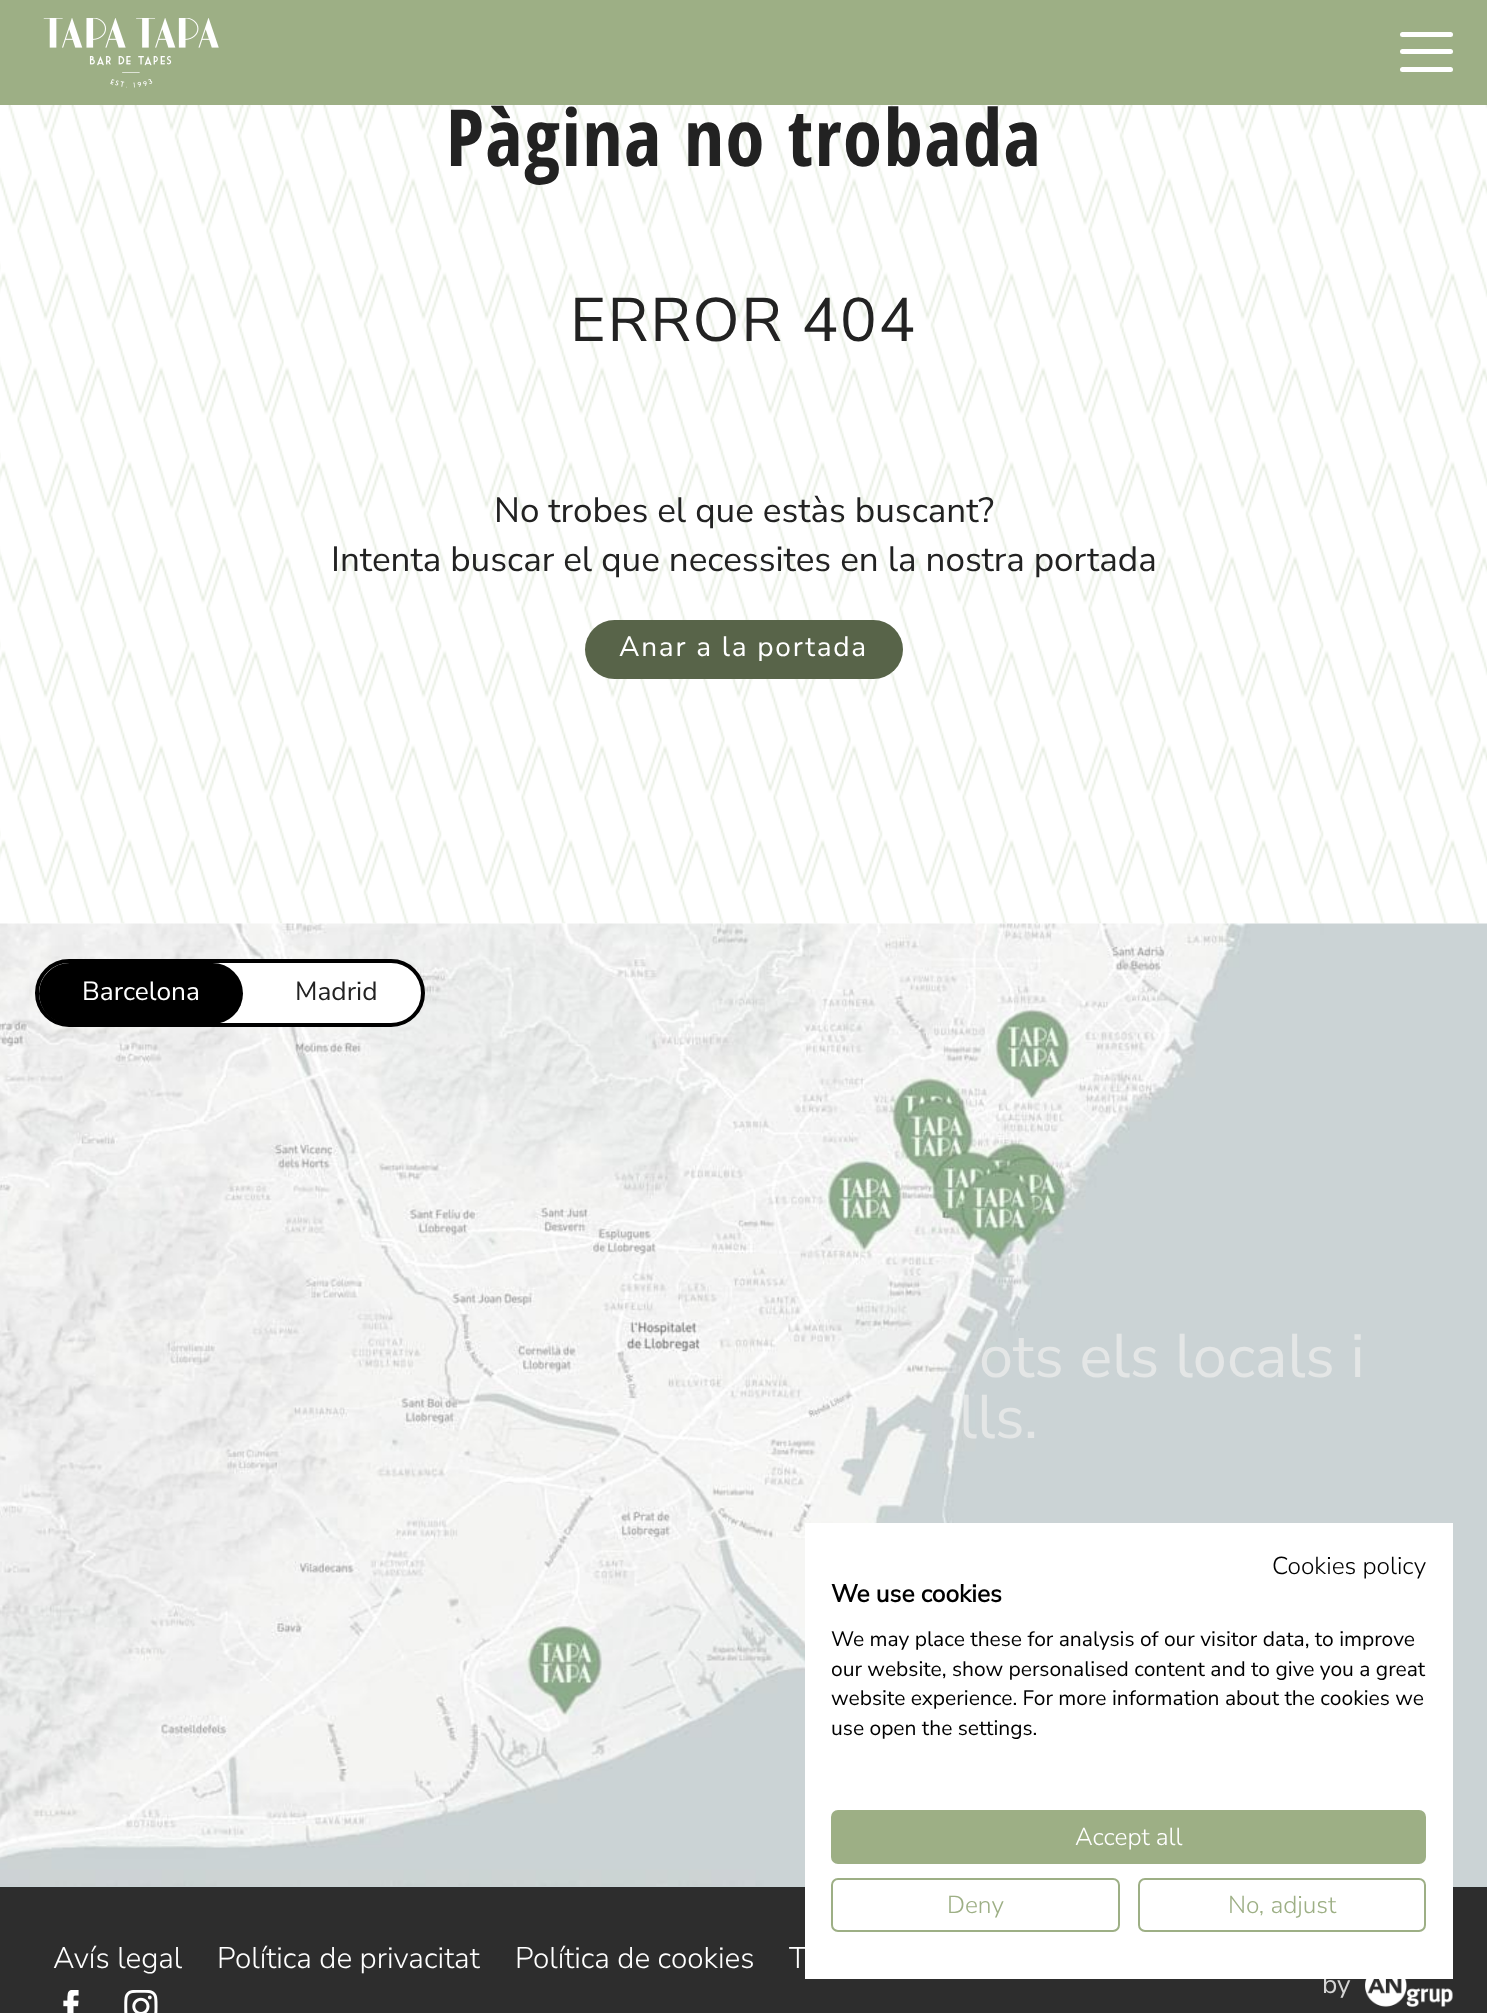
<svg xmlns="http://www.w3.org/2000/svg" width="1487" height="2013">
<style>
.a{font:bold 78.75px Open Sans Condensed;letter-spacing:1.75px;fill:#222}
.b{font:61.25px Nunito Sans;letter-spacing:1.75px;fill:#222}
.c{font:35px Nunito Sans;fill:#222}
.d{font:28px Nunito Sans;letter-spacing:1.75px;fill:#fff}
.e{font:26.25px Nunito Sans;fill:#fff}
.f{font:26.25px Nunito Sans;fill:#222}
.g{font:61.25px Nunito Sans;fill:#e4e6e6}
.h{font:300 29.75px Nunito Sans;fill:#fff}
.i{font:26.25px Nunito Sans;fill:#d5d5d5}
.j{font:300 24.5px Nunito Sans;fill:#9daf85}
.k{font:300 24.5px Nunito Sans;fill:#fff}
.l{font:21px Nunito Sans;fill:#000}
.m{font:bold 24.5px Nunito Sans;fill:#000}
.n{font:300 24.5px Nunito Sans;fill:#000}
</style>
<rect width="100%" height="100%" fill="#fff"/>
<path fill="#9daf85" d="M0 0h1487v105H0z"/>
<image href="1.png" x="43" y="18" width="176" height="70"/>
<rect fill="#fff" x="1400" y="32" width="53" height="5" rx="2.5"/>
<rect fill="#fff" x="1400" y="49" width="53" height="5" rx="2.5"/>
<rect fill="#fff" x="1400" y="67" width="53" height="5" rx="2.5"/>
<image href="2.png" x="0" y="105" width="1487" height="819"/>
<rect fill="#586449" x="585" y="620" width="318" height="59" rx="29.5"/>
<image href="3.png" x="0" y="923" width="1487" height="963"/>
<rect fill="#fff" stroke="#000" stroke-width="4" x="37" y="961" width="386" height="64" rx="32"/>
<rect fill="#000" x="39" y="963" width="204" height="61" rx="30.5"/>
<path fill="#c9d4d6" d="M0 1886h1487v1H0z"/>
<path fill="#2d2d2d" d="M0 1887h1487v126H0z"/>
<image href="4.png" x="63" y="1990" width="16" height="23"/>
<image href="5.png" x="124" y="1990" width="34" height="23"/>
<image href="6.png" x="1365" y="1979" width="88" height="28"/>
<text class="a" x="446" y="166">Pàgina no trobada</text>
<text class="b" x="570" y="341">ERROR 404</text>
<text class="c" x="494" y="522">No trobes el que estàs buscant?</text>
<text class="c" x="331" y="571">Intenta buscar el que necessites en la nostra portada</text>
<text class="d" x="619" y="656">Anar a la portada</text>
<text class="e" x="82" y="1000">Barcelona</text>
<text class="f" x="295" y="1000">Madrid</text>
<text class="g" x="979" y="1377">ots els locals i</text>
<text class="g" x="959" y="1438">lls.</text>
<text class="h" x="53" y="1968">Avís legal</text>
<text class="h" x="217" y="1968">Política de privacitat</text>
<text class="h" x="515" y="1968">Política de cookies</text>
<text class="h" x="789" y="1968">T</text>
<text class="i" x="1322" y="1993">by</text>
<path fill="#fff" d="M805 1523h648v456H805z"/>
<rect fill="none" stroke="#9daf85" stroke-width="2" x="1139" y="1879" width="286" height="52" rx="6"/>
<text class="j" x="1228" y="1913">No, adjust</text>
<rect fill="none" stroke="#9daf85" stroke-width="2" x="832" y="1879" width="287" height="52" rx="6"/>
<text class="j" x="947" y="1913">Deny</text>
<rect fill="#9daf85" stroke="#9daf85" stroke-width="2" x="832" y="1811" width="593" height="52" rx="6"/>
<text class="k" x="1075" y="1845">Accept all</text>
<text class="l" x="831" y="1735">use open the settings.</text>
<text class="l" x="831" y="1705">website experience. For more information about the cookies we</text>
<text class="l" x="831" y="1676">our website, show personalised content and to give you a great</text>
<text class="l" x="831" y="1646">We may place these for analysis of our visitor data, to improve</text>
<text class="m" x="831" y="1602">We use cookies</text>
<text class="n" x="1272" y="1574">Cookies policy</text>
</svg>
